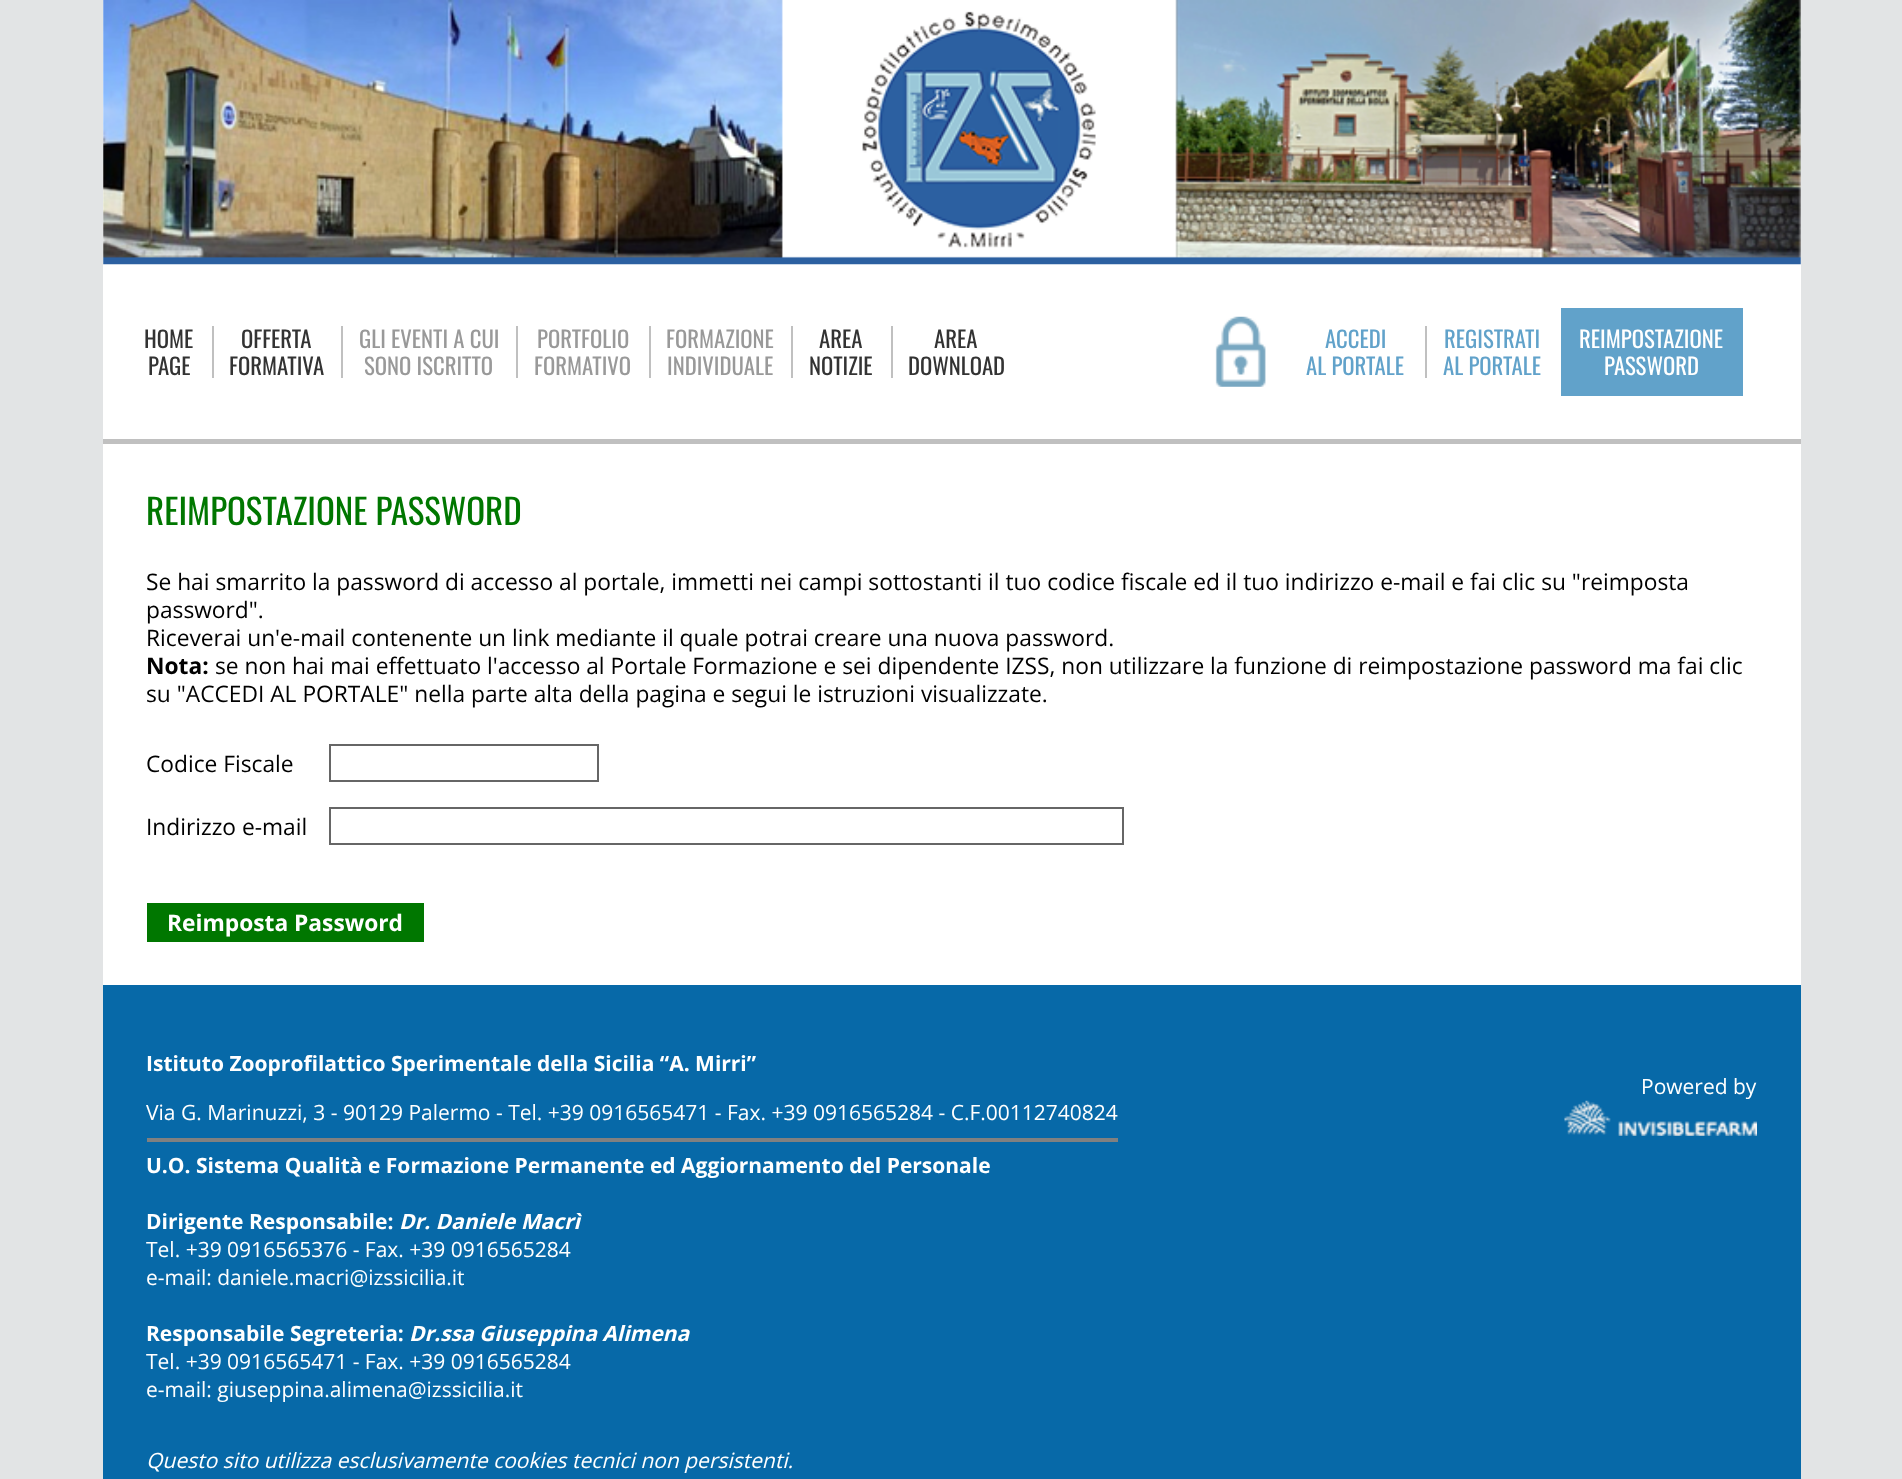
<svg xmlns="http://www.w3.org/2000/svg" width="1902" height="1479">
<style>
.a{font:22.75px Oswald;fill:#333}
.b{font:22.75px Oswald;fill:#999}
.c{font:22.75px Oswald;fill:#61a2ca}
.d{font:22.75px Oswald;fill:#fff}
.e{font:35px Oswald;fill:#070}
.f{font:22.75px Open Sans;fill:#000}
.g{font:bold 22.75px Open Sans;fill:#000}
.h{font:bold 22.75px Open Sans;fill:#fff}
.i{font:bold 21px Open Sans;fill:#fff}
.j{font:21px Open Sans;fill:#fff}
.k{font:italic bold 21px Open Sans;fill:#fff}
.l{font:italic 21px Open Sans;fill:#fff}
</style>
<rect width="100%" height="100%" fill="#e2e4e5"/>
<path fill="#fff" d="M103 0h1698v985H103z"/>
<image href="1.png" x="103" y="0" width="1698" height="265"/>
<path fill="#c0c0c0" d="M103 439h1698v5H103z"/>
<path fill="#c0c0c0" d="M212 326h2v52H212z"/>
<path fill="#c0c0c0" d="M341 326h2v52H341z"/>
<path fill="#c0c0c0" d="M516 326h2v52H516z"/>
<path fill="#c0c0c0" d="M649 326h2v52H649z"/>
<path fill="#c0c0c0" d="M791 326h2v52H791z"/>
<path fill="#c0c0c0" d="M891 326h2v52H891z"/>
<image href="2.png" x="1215" y="316" width="51" height="71"/>
<path fill="#c0c0c0" d="M1425 326h2v52H1425z"/>
<path fill="#61a2ca" d="M1561 308h182v88H1561z"/>
<path fill="none" stroke="#666" stroke-width="2" d="M330 745h268v36H330z"/>
<path fill="none" stroke="#666" stroke-width="2" d="M330 808h793v36H330z"/>
<path fill="#070" d="M147 903h277v39H147z"/>
<path fill="#0769a8" d="M103 985h1698v494H103z"/>
<path fill="#808080" d="M147 1138h971v4H147z"/>
<image href="3.png" x="1564" y="1100" width="193" height="36"/>
<text class="a" x="144" y="348">HOME</text>
<text class="a" x="148" y="375">PAGE</text>
<text class="a" x="241" y="348">OFFERTA</text>
<text class="a" x="229" y="375">FORMATIVA</text>
<text class="b" x="359" y="348">GLI EVENTI A CUI</text>
<text class="b" x="364" y="375">SONO ISCRITTO</text>
<text class="b" x="537" y="348">PORTFOLIO</text>
<text class="b" x="534" y="375">FORMATIVO</text>
<text class="b" x="666" y="348">FORMAZIONE</text>
<text class="b" x="667" y="375">INDIVIDUALE</text>
<text class="a" x="819" y="348">AREA</text>
<text class="a" x="809" y="375">NOTIZIE</text>
<text class="a" x="934" y="348">AREA</text>
<text class="a" x="908" y="375">DOWNLOAD</text>
<text class="c" x="1325" y="348">ACCEDI</text>
<text class="c" x="1306" y="375">AL PORTALE</text>
<text class="c" x="1444" y="348">REGISTRATI</text>
<text class="c" x="1443" y="375">AL PORTALE</text>
<text class="d" x="1579" y="348">REIMPOSTAZIONE</text>
<text class="d" x="1604" y="375">PASSWORD</text>
<text class="e" x="146" y="525">REIMPOSTAZIONE PASSWORD</text>
<text class="f" x="146" y="590">Se hai smarrito la password di accesso al portale, immetti nei campi sottostanti il tuo codice fiscale ed il tuo indirizzo e-mail e fai clic su "reimposta</text>
<text class="f" x="146" y="618">password".</text>
<text class="f" x="146" y="646">Riceverai un'e-mail contenente un link mediante il quale potrai creare una nuova password.</text>
<text class="g" x="146" y="674">Nota:</text>
<text class="f" x="215" y="674">se non hai mai effettuato l'accesso al Portale Formazione e sei dipendente IZSS, non utilizzare la funzione di reimpostazione password ma fai clic</text>
<text class="f" x="146" y="702">su "ACCEDI AL PORTALE" nella parte alta della pagina e segui le istruzioni visualizzate.</text>
<text class="f" x="146" y="772">Codice Fiscale</text>
<text class="f" x="146" y="835">Indirizzo e-mail</text>
<text class="h" x="167" y="931">Reimposta Password</text>
<text class="i" x="146" y="1071">Istituto Zooprofilattico Sperimentale della Sicilia “A. Mirri”</text>
<text class="j" x="146" y="1120">Via G. Marinuzzi, 3 - 90129 Palermo - Tel. +39 0916565471 - Fax. +39 0916565284 - C.F.00112740824</text>
<text class="i" x="146" y="1173">U.O. Sistema Qualità e Formazione Permanente ed Aggiornamento del Personale</text>
<text class="i" x="146" y="1229">Dirigente Responsabile:</text>
<text class="k" x="399" y="1229">Dr. Daniele Macrì</text>
<text class="j" x="146" y="1257">Tel. +39 0916565376 - Fax. +39 0916565284</text>
<text class="j" x="146" y="1285">e-mail: daniele.macri@izssicilia.it</text>
<text class="i" x="146" y="1341">Responsabile Segreteria:</text>
<text class="k" x="409" y="1341">Dr.ssa Giuseppina Alimena</text>
<text class="j" x="146" y="1369">Tel. +39 0916565471 - Fax. +39 0916565284</text>
<text class="j" x="146" y="1397">e-mail: giuseppina.alimena@izssicilia.it</text>
<text class="l" x="146" y="1468">Questo sito utilizza esclusivamente cookies tecnici non persistenti.</text>
<text class="j" x="1641" y="1094">Powered by</text>
</svg>
